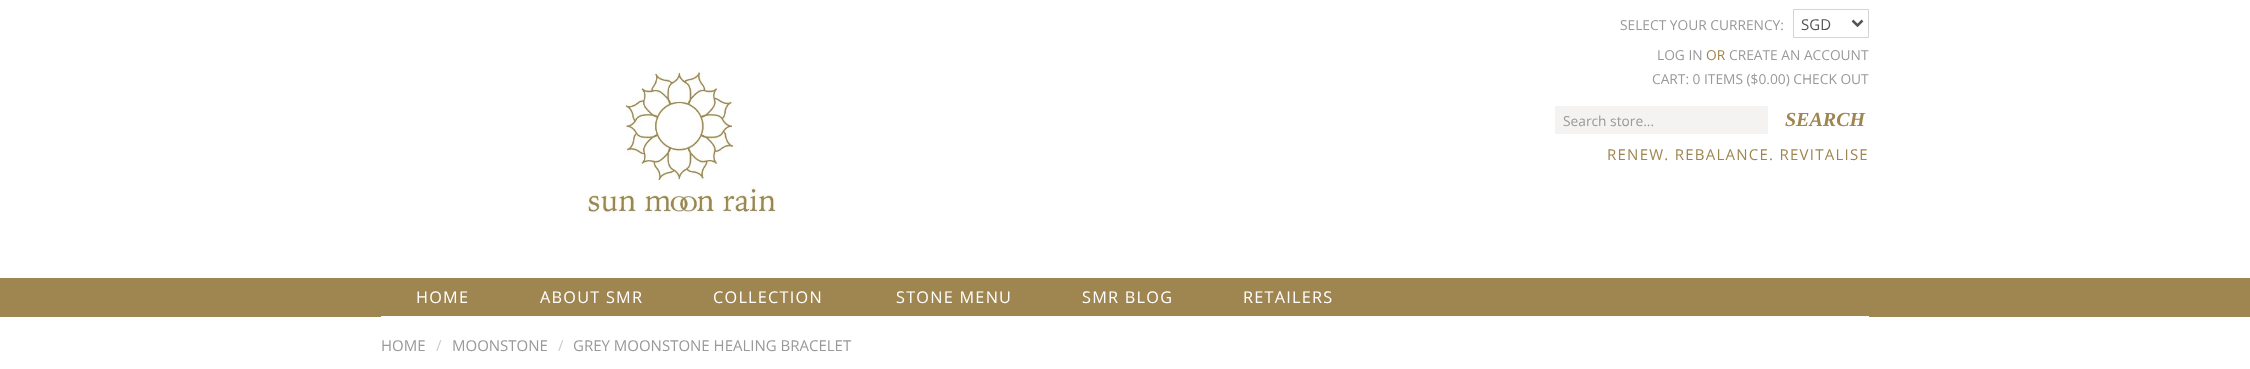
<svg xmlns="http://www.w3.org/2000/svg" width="2250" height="369">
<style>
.a{font:13.75px Open Sans;fill:#999}
.b{font:15px Open Sans;fill:#555}
.c{font:13.75px Open Sans;fill:#9f8650}
.d{font:italic bold 20px Liberation Serif;fill:#9f8650}
.e{font:15px Open Sans;letter-spacing:1.25px;fill:#9f8650}
.f{font:16.25px Open Sans;letter-spacing:1.25px;fill:#fff}
.g{font:15px Open Sans;fill:#999}
.h{font:15px Open Sans;fill:#ccc}
</style>
<rect width="100%" height="100%" fill="#fff"/>
<path fill="none" stroke="#d4d4d4" d="M1793.5 9.5h75v28H1793.5z"/>
<path fill="none" stroke="#555" stroke-width="2.5" d="M1852.5 20.5l5 5l5-5"/>
<image href="1.png" x="585" y="71" width="192" height="145"/>
<path fill="#f4f3f2" d="M1555 106h213v28H1555z"/>
<path fill="#9f8650" d="M0 278h2250v39H0z"/>
<path fill="#fff" d="M381 316h1488v1H381z"/>
<text class="a" x="1620" y="30">SELECT YOUR CURRENCY:</text>
<text class="b" x="1801" y="30">SGD</text>
<text class="a" x="1657" y="60">LOG IN</text>
<text class="c" x="1706" y="60">OR</text>
<text class="a" x="1729" y="60">CREATE AN ACCOUNT</text>
<text class="a" x="1652" y="84">CART: 0 ITEMS ($0.00) CHECK OUT</text>
<text class="a" x="1563" y="126">Search store...</text>
<text class="d" x="1785" y="126">SEARCH</text>
<text class="e" x="1607" y="160">RENEW. REBALANCE. REVITALISE</text>
<text class="f" x="416" y="303">HOME</text>
<text class="f" x="540" y="303">ABOUT SMR</text>
<text class="f" x="713" y="303">COLLECTION</text>
<text class="f" x="896" y="303">STONE MENU</text>
<text class="f" x="1082" y="303">SMR BLOG</text>
<text class="f" x="1243" y="303">RETAILERS</text>
<text class="g" x="381" y="351">HOME</text>
<text class="h" x="436" y="351">/</text>
<text class="g" x="452" y="351">MOONSTONE</text>
<text class="h" x="558" y="351">/</text>
<text class="g" x="573" y="351">GREY MOONSTONE HEALING BRACELET</text>
</svg>
